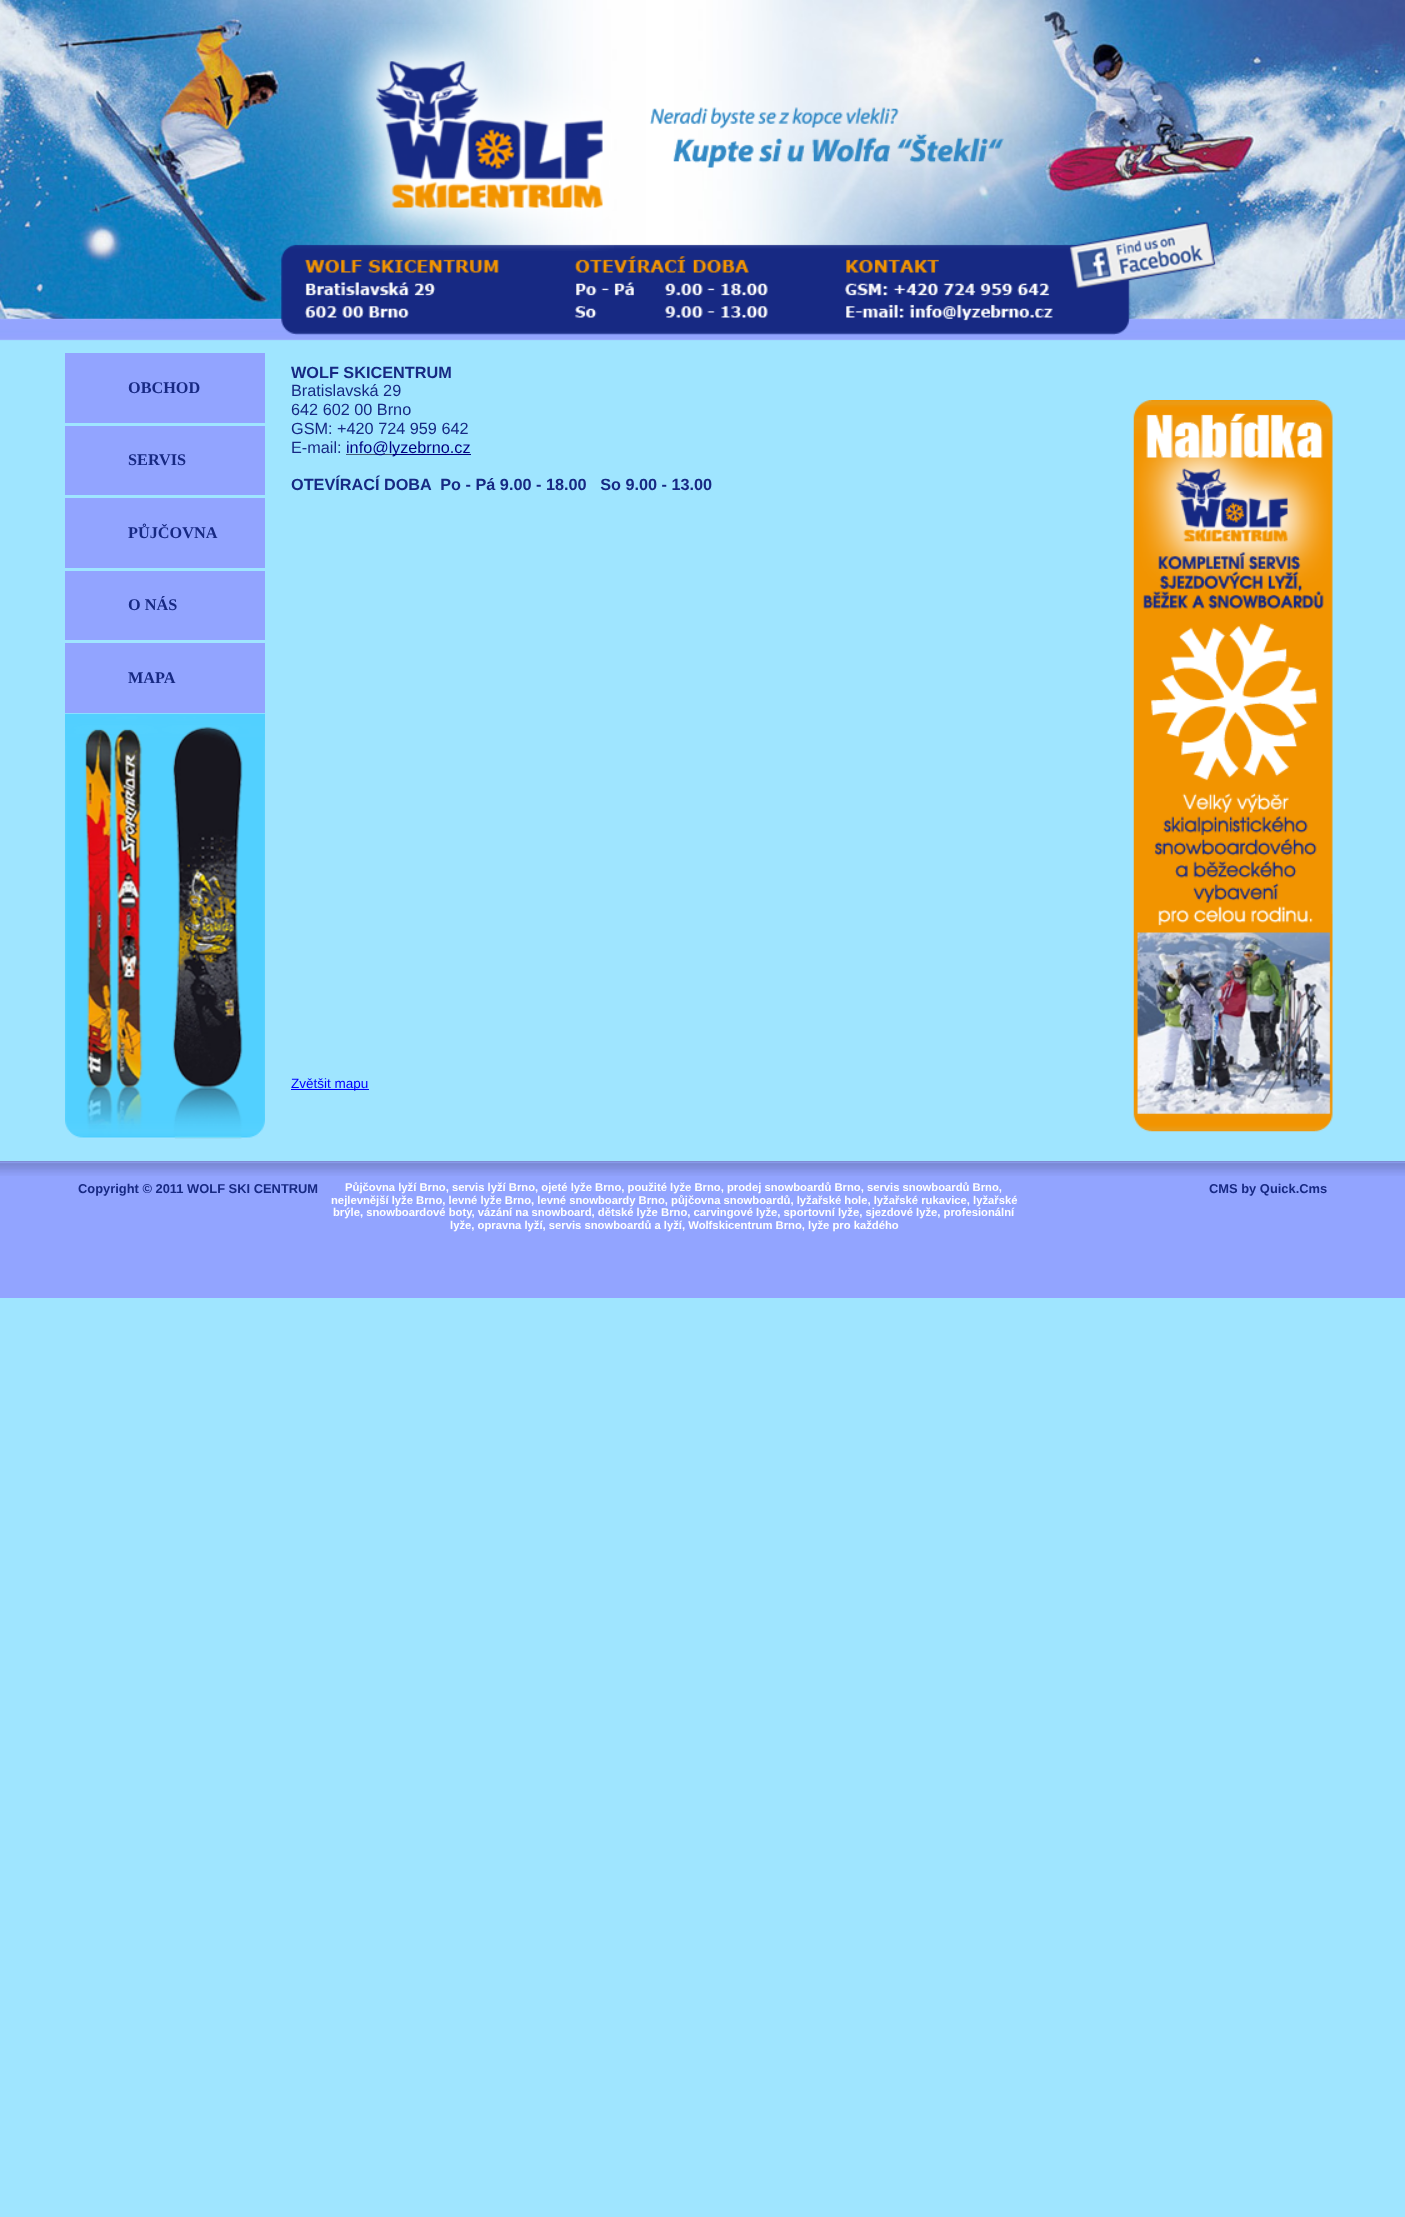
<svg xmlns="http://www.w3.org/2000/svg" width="1405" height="2217">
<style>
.a{font:bold 16.25px Liberation Serif;fill:#172983}
.b{font:bold 16.25px Liberation Sans;fill:#172983}
.c{font:16.25px Liberation Sans;fill:#172983}
.d{font:16.25px Liberation Sans;fill:#000080}
.e{font:13.5px Liberation Sans;fill:#00f}
.f{font:bold 12.9px Liberation Sans;fill:#172983}
.g{font:bold 11.25px Liberation Sans;fill:#fff}
</style>
<rect width="100%" height="100%" fill="#9fe5ff"/>
<image href="1.png" x="0" y="0" width="1405" height="341"/>
<image href="2.png" x="281" y="107" width="935" height="228"/>
<image href="3.png" x="337" y="24" width="277" height="227"/>
<path fill="#92a4ff" d="M65 353h200v360H65z"/>
<path fill="#9fe5ff" d="M65 423h200v3H65z"/>
<path fill="#9fe5ff" d="M65 495h200v3H65z"/>
<path fill="#9fe5ff" d="M65 568h200v3H65z"/>
<path fill="#9fe5ff" d="M65 640h200v3H65z"/>
<image href="4.png" x="65" y="713" width="200" height="426"/>
<path fill="#425a77" d="M346 454h47v1H346z"/>
<path fill="#000080" d="M393 454h78v1H393z"/>
<path fill="#00f" d="M291 1089h78v1H291z"/>
<image href="5.png" x="1133" y="400" width="200" height="732"/>
<path fill="#92a4ff" d="M0 1162h1405v136H0z"/>
<image href="6.png" x="0" y="1162" width="1405" height="14"/>
<path fill="#7f8dd4" d="M0 1161h1405v1H0z"/>
<text class="a" x="128" y="393">OBCHOD</text>
<text class="a" x="128" y="465">SERVIS</text>
<text class="a" x="128" y="538">PŮJČOVNA</text>
<text class="a" x="128" y="610">O NÁS</text>
<text class="a" x="128" y="683">MAPA</text>
<text class="b" x="291" y="378">WOLF SKICENTRUM</text>
<text class="c" x="291" y="396">Bratislavská 29</text>
<text class="c" x="291" y="415">642 602 00 Brno</text>
<text class="c" x="291" y="434">GSM: +420 724 959 642</text>
<text class="c" x="291" y="453">E-mail:</text>
<text class="d" x="346" y="453">info@l</text>
<text class="d" x="392" y="453">yzebrno.cz</text>
<text class="b" xml:space="preserve" x="291" y="490">OTEVÍRACÍ DOBA  Po - Pá 9.00 - 18.00   So 9.00 - 13.00</text>
<text class="e" x="291" y="1088">Zvětšit mapu</text>
<text class="f" x="78" y="1193">Copyright © 2011 WOLF SKI CENTRUM</text>
<text class="g" x="345" y="1191">Půjčovna lyží Brno, servis lyží Brno, ojeté lyže Brno, použité lyže Brno, prodej snowboardů Brno, servis snowboardů Brno,</text>
<text class="g" x="331" y="1204">nejlevnější lyže Brno, levné lyže Brno, levné snowboardy Brno, půjčovna snowboardů, lyžařské hole, lyžařské rukavice, lyžařské</text>
<text class="g" x="333" y="1216">brýle, snowboardové boty, vázání na snowboard, dětské lyže Brno, carvingové lyže, sportovní lyže, sjezdové lyže, profesionální</text>
<text class="g" x="450" y="1229">lyže, opravna lyží, servis snowboardů a lyží, Wolfskicentrum Brno, lyže pro každého</text>
<text class="f" x="1209" y="1193">CMS by Quick.Cms</text>
</svg>
